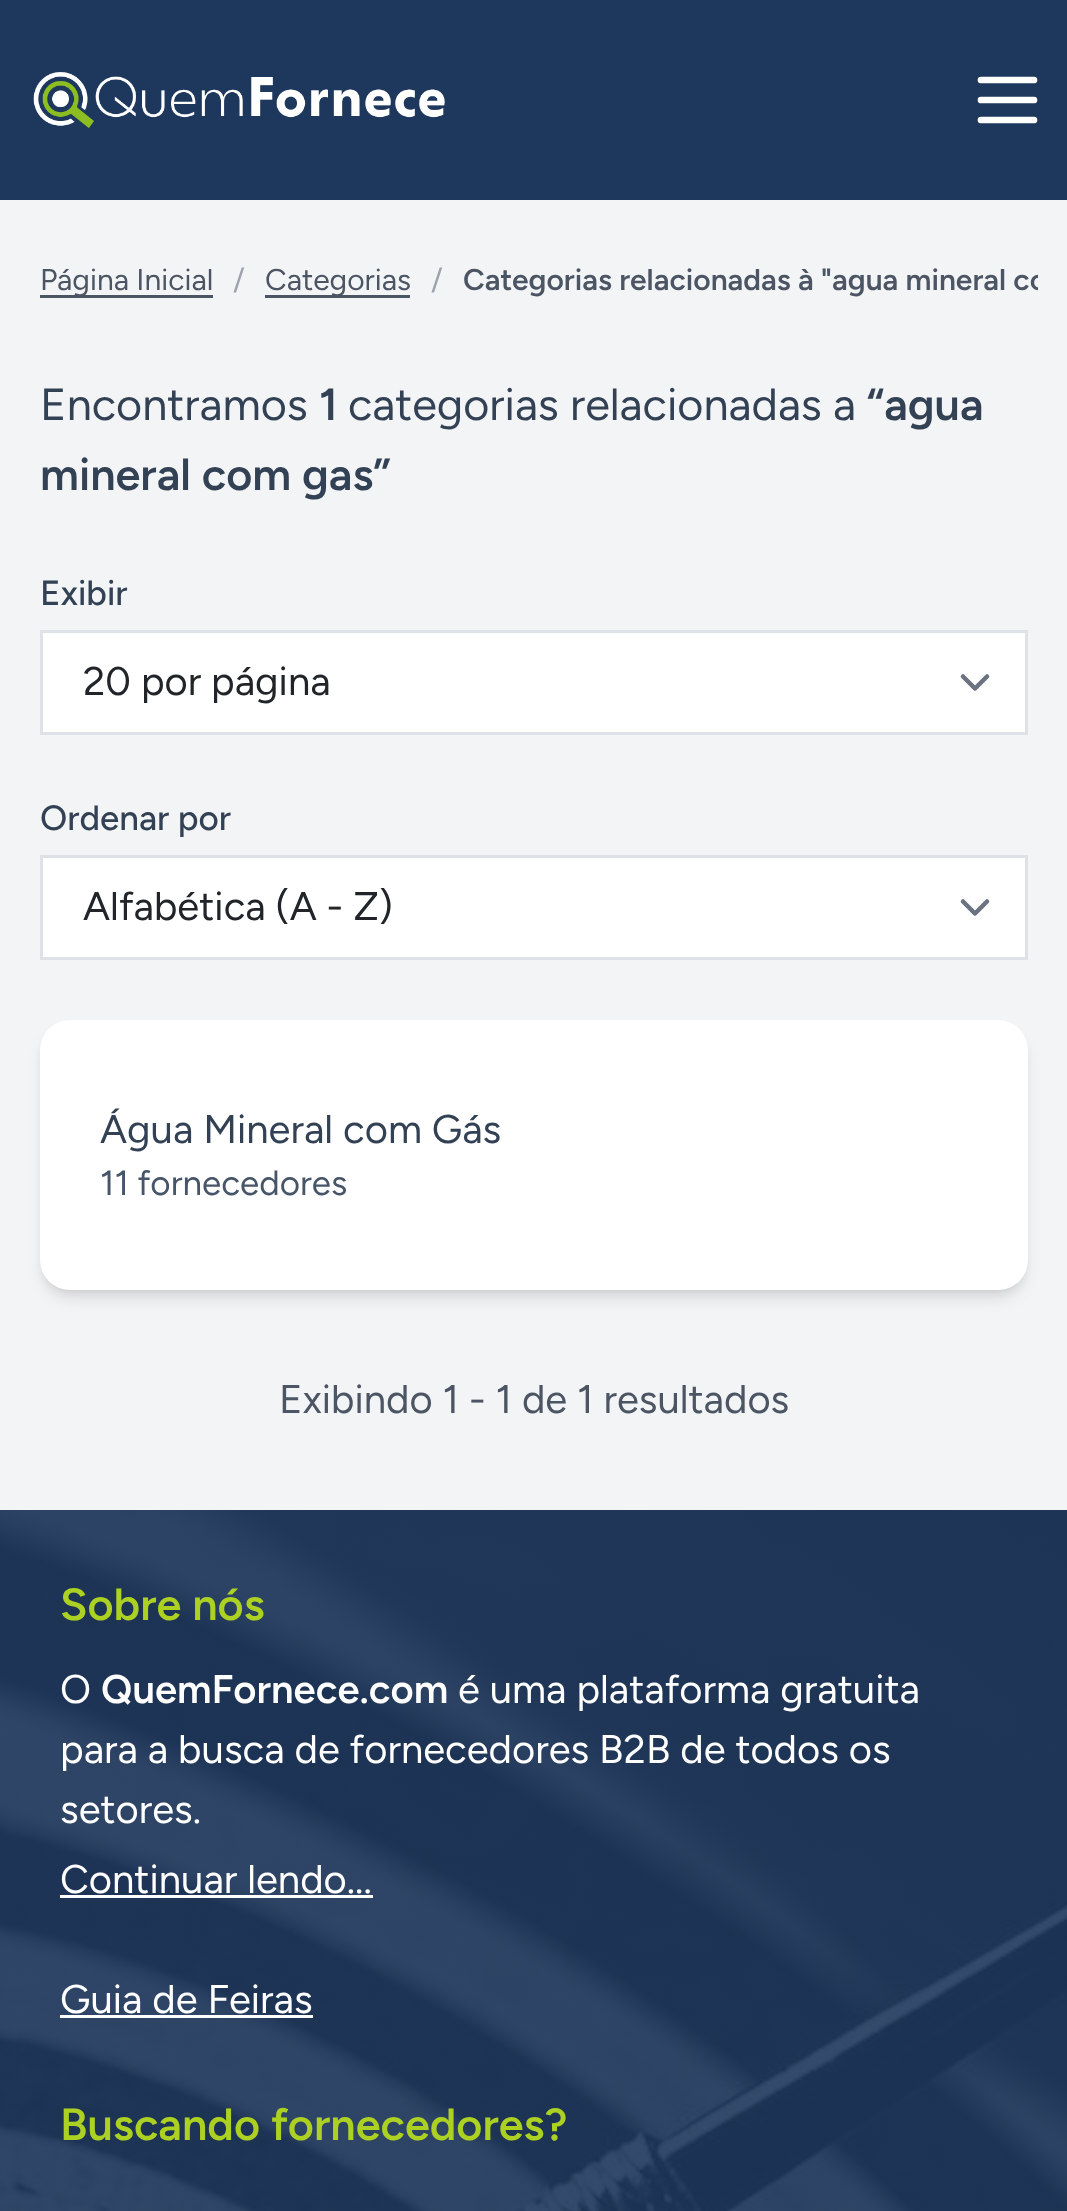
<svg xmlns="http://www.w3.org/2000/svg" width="1067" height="2211">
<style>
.a{font:300 30px Figtree;fill:#4b5563}
.b{font:300 30px Figtree;fill:#9ca3af}
.c{font:600 30px Figtree;fill:#4b5563}
.d{font:300 45px Figtree;fill:#334155}
.e{font:600 45px Figtree;fill:#334155}
.f{font:300 35px 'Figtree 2';fill:#334155}
.g{font:300 40px Figtree;fill:#212529}
.h{font:300 40px Figtree;fill:#334155}
.i{font:300 35px Figtree;fill:#475569}
.j{font:300 40px Figtree;fill:#4b5563}
.k{font:600 45px Figtree;fill:#acd122}
.l{font:300 40px Figtree;fill:#fff}
.m{font:600 40px Figtree;fill:#fff}
</style>
<defs>
<clipPath id="clip1"><path d="M30 200h1008v120H30z"/></clipPath>
</defs>
<rect width="100%" height="100%" fill="#f3f4f6"/>
<path fill="#1e375c" d="M0 0h1067v200H0z"/>
<image href="1.png" x="33" y="72" width="412" height="56"/>
<path fill="none" stroke="#fff" stroke-width="6.7" stroke-linecap="round" stroke-linejoin="round" d="M981 100h53m-53-20h53m-53 40h53"/>
<path fill="#4b5563" d="M40 295h173v3H40z"/>
<path fill="#4b5563" d="M265 295h145v3H265z"/>
<path fill="#fff" d="M43 633h982v99H43z"/>
<path fill="none" stroke="#6b7280" stroke-width="4.5" stroke-linecap="round" stroke-linejoin="round" d="M963 676.5l12 12l12-12"/>
<path fill="none" stroke="#dee2e6" stroke-width="3" d="M41.5 631.5h985v102H41.5z"/>
<path fill="#fff" d="M43 858h982v99H43z"/>
<path fill="none" stroke="#6b7280" stroke-width="4.5" stroke-linecap="round" stroke-linejoin="round" d="M963 901.5l12 12l12-12"/>
<path fill="none" stroke="#dee2e6" stroke-width="3" d="M41.5 856.5h985v102H41.5z"/>
<rect fill="#0000001a" filter="blur(5px)" x="45" y="1030" width="978" height="260" rx="25"/>
<rect fill="#0000001a" filter="blur(7.5px)" x="43" y="1033" width="982" height="265" rx="28"/>
<rect fill="#fff" x="40" y="1020" width="988" height="270" rx="30"/>
<image href="2.png" x="0" y="1510" width="1067" height="701"/>
<path fill="#fff" d="M60 1895h313v3H60z"/>
<path fill="#fff" d="M60 2015h253v3H60z"/>
<text class="a" x="40" y="290">Página Inicial</text>
<text class="b" x="233" y="290">/</text>
<text class="a" x="265" y="290">Categorias</text>
<text class="b" x="431" y="290">/</text>
<g clip-path="url(#clip1)">
<text class="c" x="463" y="290">Categorias relacionadas à "agua mineral co</text>
</g>
<text class="d" x="40" y="420">Encontramos</text>
<text class="e" x="319" y="420">1</text>
<text class="d" x="348" y="420">categorias relacionadas a</text>
<text class="e" x="867" y="420">“agua</text>
<text class="e" x="40" y="490">mineral com gas”</text>
<text class="f" x="40" y="605">Exibir</text>
<text class="g" x="83" y="695">20 por página</text>
<text class="f" x="40" y="830">Ordenar por</text>
<text class="g" x="83" y="920">Alfabética (A - Z)</text>
<text class="h" x="100" y="1143">Água Mineral com Gás</text>
<text class="i" x="100" y="1195">11 fornecedores</text>
<text class="j" x="279" y="1413">Exibindo 1 - 1 de 1 resultados</text>
<text class="k" x="60" y="1620">Sobre nós</text>
<text class="l" x="60" y="1703">O</text>
<text class="m" x="101" y="1703">QuemFornece.com</text>
<text class="l" x="458" y="1703">é uma plataforma gratuita</text>
<text class="l" x="60" y="1763">para a busca de fornecedores B2B de todos os</text>
<text class="l" x="60" y="1823">setores.</text>
<text class="l" x="60" y="1893">Continuar lendo...</text>
<text class="l" x="60" y="2013">Guia de Feiras</text>
<text class="k" x="60" y="2140">Buscando fornecedores?</text>
</svg>
